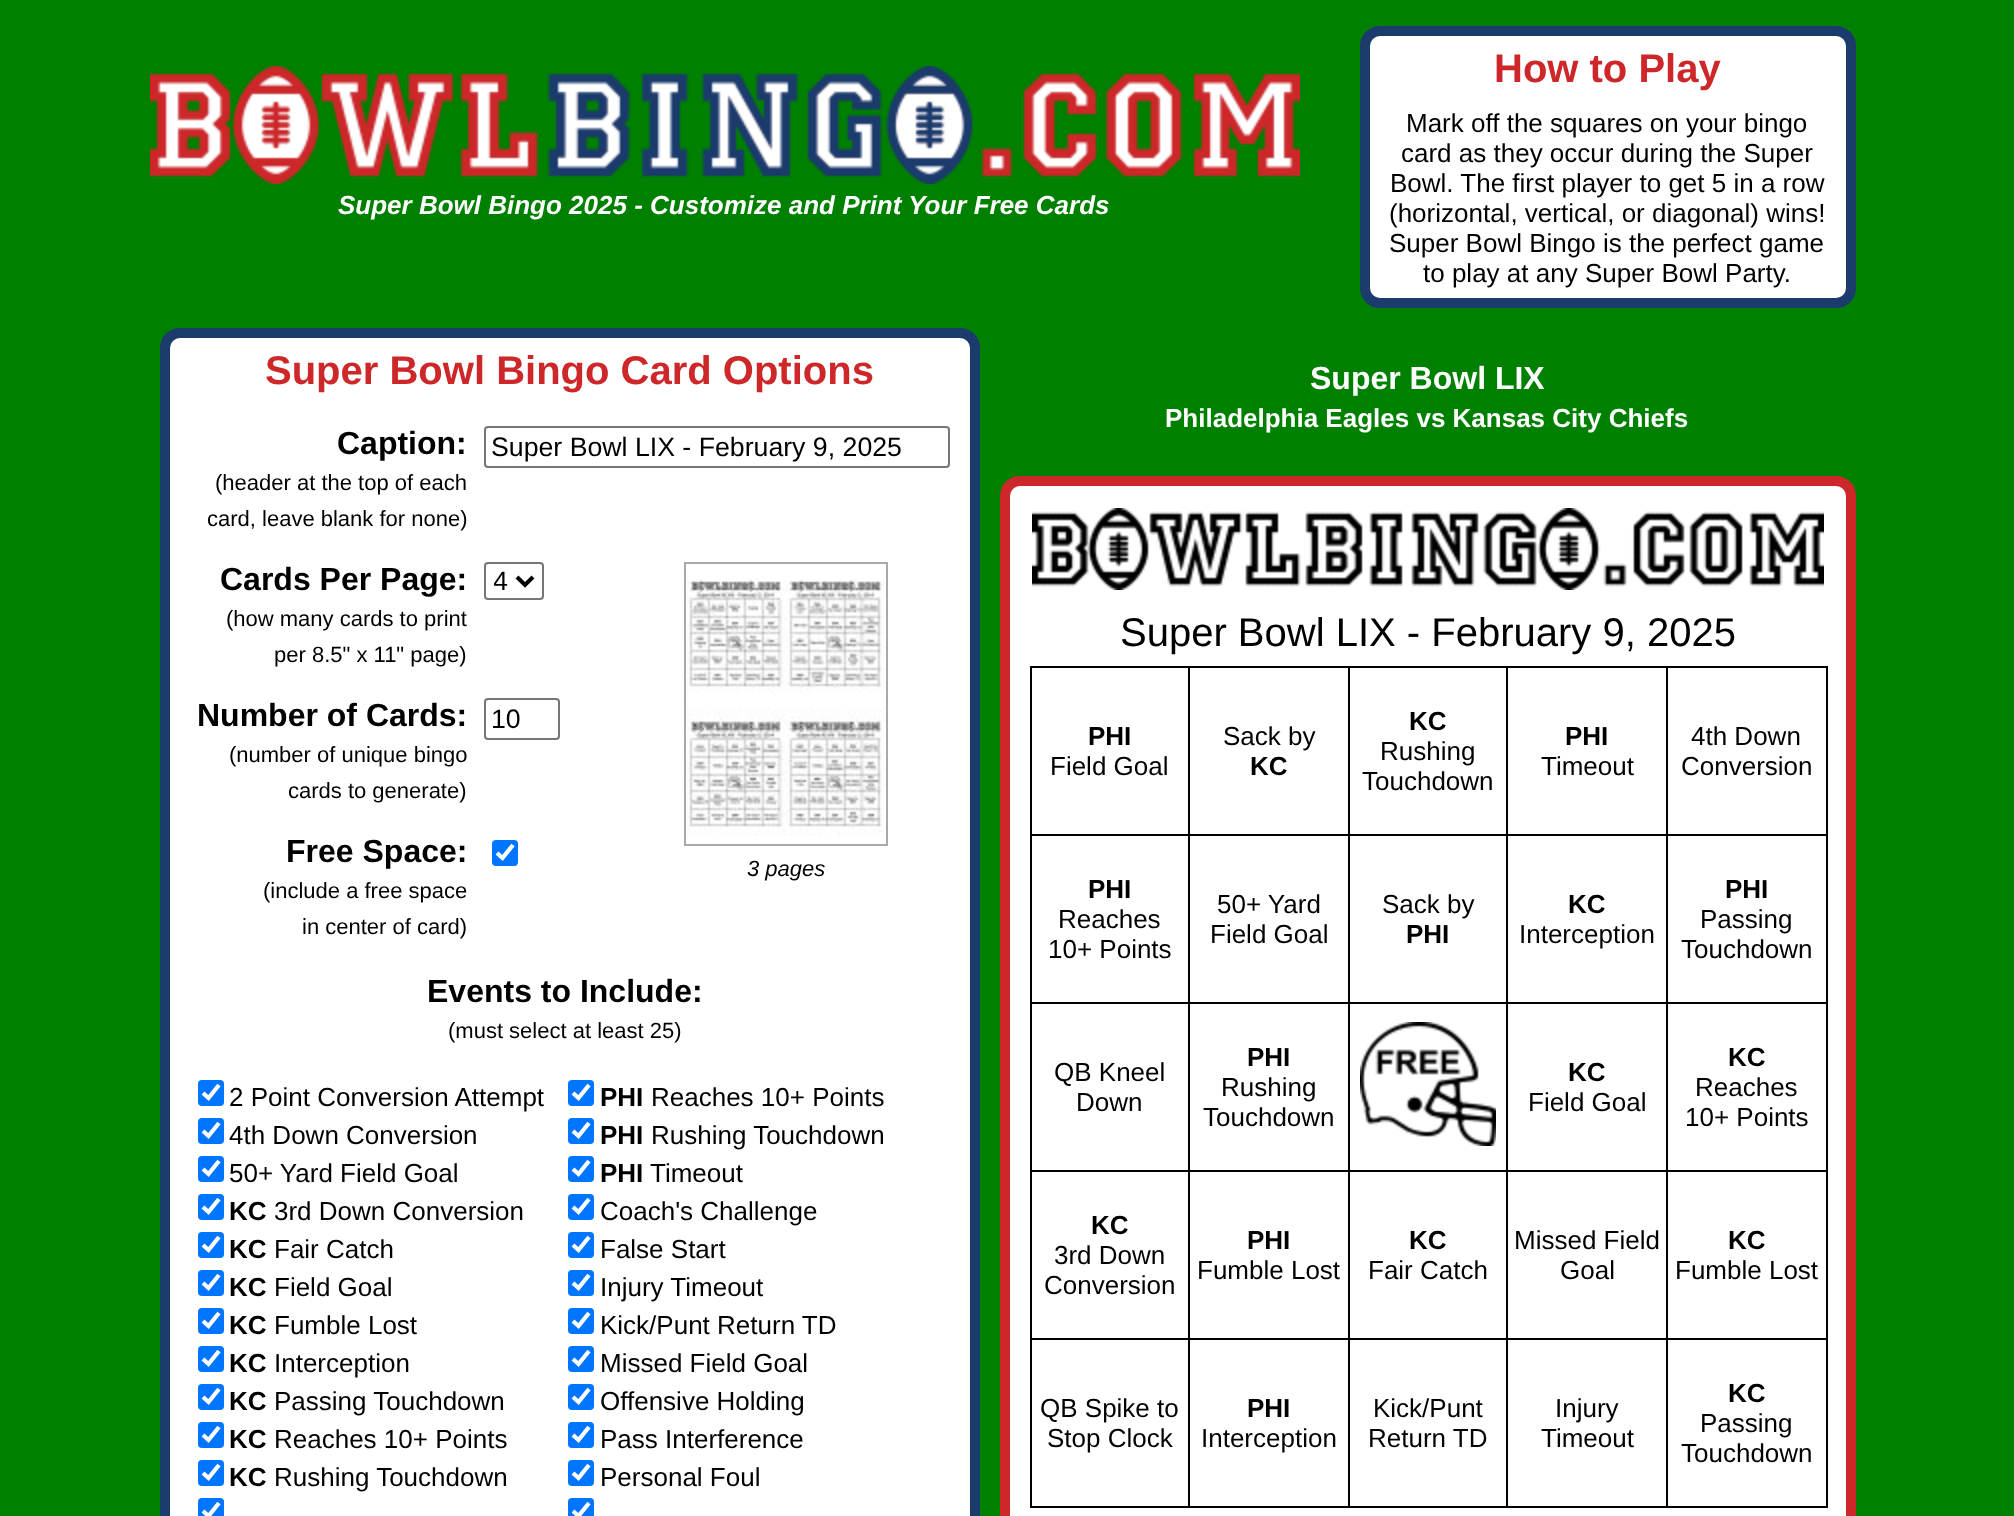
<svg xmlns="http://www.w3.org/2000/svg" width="2014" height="1516">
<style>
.a{font:italic bold 26px Liberation Sans;fill:#fff}
.b{font:bold 40px Liberation Sans;fill:#cd2729}
.c{font:26px Liberation Sans;fill:#000}
.d{font:bold 32px Liberation Sans;fill:#000}
.e{font:22px Liberation Sans;fill:#000}
.f{font:26.7px Liberation Sans;fill:#000}
.g{font:italic 22px Liberation Sans;fill:#000}
.h{font:bold 26px Liberation Sans;fill:#000}
.i{font:bold 32px Liberation Sans;fill:#fff}
.j{font:bold 26px Liberation Sans;fill:#fff}
.k{font:40px Liberation Sans;fill:#000}
</style>
<defs>
<clipPath id="clip1"><path d="M494 564h16v34H494z"/></clipPath>
</defs>
<rect width="100%" height="100%" fill="#008000"/>
<image href="1.png" x="150" y="66" width="1150" height="118"/>
<rect fill="#fff" stroke="#1b3b6c" stroke-width="10" x="1365" y="31" width="486" height="272" rx="15"/>
<rect fill="#fff" stroke="#1b3b6c" stroke-width="10" x="165" y="333" width="810" height="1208" rx="15"/>
<rect fill="none" stroke="#767676" stroke-width="2" x="485" y="427" width="464" height="40" rx="3"/>
<rect fill="none" stroke="#767676" stroke-width="2" x="485" y="563" width="58" height="36" rx="3"/>
<path fill="none" stroke="#000" stroke-width="4" d="M517 577l8 8l8-8"/>
<path fill="none" stroke="#a9a9a9" stroke-width="2" d="M685 563h202v282H685z"/>
<image href="2.png" x="686" y="579" width="200" height="257"/>
<rect fill="none" stroke="#767676" stroke-width="2" x="485" y="699" width="74" height="40" rx="3"/>
<rect fill="#0075ff" x="492" y="840" width="26" height="26" rx="4"/>
<path fill="none" stroke="#fff" stroke-width="4.2" d="M497 853l5.5 5l10.5-13"/>
<rect fill="#0075ff" x="198" y="1080" width="26" height="26" rx="4"/>
<path fill="none" stroke="#fff" stroke-width="4.2" d="M203 1093l5.5 5l10.5-13"/>
<rect fill="#0075ff" x="198" y="1118" width="26" height="26" rx="4"/>
<path fill="none" stroke="#fff" stroke-width="4.2" d="M203 1131l5.5 5l10.5-13"/>
<rect fill="#0075ff" x="198" y="1156" width="26" height="26" rx="4"/>
<path fill="none" stroke="#fff" stroke-width="4.2" d="M203 1169l5.5 5l10.5-13"/>
<rect fill="#0075ff" x="198" y="1194" width="26" height="26" rx="4"/>
<path fill="none" stroke="#fff" stroke-width="4.2" d="M203 1207l5.5 5l10.5-13"/>
<rect fill="#0075ff" x="198" y="1232" width="26" height="26" rx="4"/>
<path fill="none" stroke="#fff" stroke-width="4.2" d="M203 1245l5.5 5l10.5-13"/>
<rect fill="#0075ff" x="198" y="1270" width="26" height="26" rx="4"/>
<path fill="none" stroke="#fff" stroke-width="4.2" d="M203 1283l5.5 5l10.5-13"/>
<rect fill="#0075ff" x="198" y="1308" width="26" height="26" rx="4"/>
<path fill="none" stroke="#fff" stroke-width="4.2" d="M203 1321l5.5 5l10.5-13"/>
<rect fill="#0075ff" x="198" y="1346" width="26" height="26" rx="4"/>
<path fill="none" stroke="#fff" stroke-width="4.2" d="M203 1359l5.5 5l10.5-13"/>
<rect fill="#0075ff" x="198" y="1384" width="26" height="26" rx="4"/>
<path fill="none" stroke="#fff" stroke-width="4.2" d="M203 1397l5.5 5l10.5-13"/>
<rect fill="#0075ff" x="198" y="1422" width="26" height="26" rx="4"/>
<path fill="none" stroke="#fff" stroke-width="4.2" d="M203 1435l5.5 5l10.5-13"/>
<rect fill="#0075ff" x="198" y="1460" width="26" height="26" rx="4"/>
<path fill="none" stroke="#fff" stroke-width="4.2" d="M203 1473l5.5 5l10.5-13"/>
<rect fill="#0075ff" x="198" y="1498" width="26" height="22" rx="4"/>
<path fill="none" stroke="#fff" stroke-width="4.2" d="M203 1511l5.5 5l10.5-13"/>
<rect fill="#0075ff" x="568" y="1080" width="26" height="26" rx="4"/>
<path fill="none" stroke="#fff" stroke-width="4.2" d="M573 1093l5.5 5l10.5-13"/>
<rect fill="#0075ff" x="568" y="1118" width="26" height="26" rx="4"/>
<path fill="none" stroke="#fff" stroke-width="4.2" d="M573 1131l5.5 5l10.5-13"/>
<rect fill="#0075ff" x="568" y="1156" width="26" height="26" rx="4"/>
<path fill="none" stroke="#fff" stroke-width="4.2" d="M573 1169l5.5 5l10.5-13"/>
<rect fill="#0075ff" x="568" y="1194" width="26" height="26" rx="4"/>
<path fill="none" stroke="#fff" stroke-width="4.2" d="M573 1207l5.5 5l10.5-13"/>
<rect fill="#0075ff" x="568" y="1232" width="26" height="26" rx="4"/>
<path fill="none" stroke="#fff" stroke-width="4.2" d="M573 1245l5.5 5l10.5-13"/>
<rect fill="#0075ff" x="568" y="1270" width="26" height="26" rx="4"/>
<path fill="none" stroke="#fff" stroke-width="4.2" d="M573 1283l5.5 5l10.5-13"/>
<rect fill="#0075ff" x="568" y="1308" width="26" height="26" rx="4"/>
<path fill="none" stroke="#fff" stroke-width="4.2" d="M573 1321l5.5 5l10.5-13"/>
<rect fill="#0075ff" x="568" y="1346" width="26" height="26" rx="4"/>
<path fill="none" stroke="#fff" stroke-width="4.2" d="M573 1359l5.5 5l10.5-13"/>
<rect fill="#0075ff" x="568" y="1384" width="26" height="26" rx="4"/>
<path fill="none" stroke="#fff" stroke-width="4.2" d="M573 1397l5.5 5l10.5-13"/>
<rect fill="#0075ff" x="568" y="1422" width="26" height="26" rx="4"/>
<path fill="none" stroke="#fff" stroke-width="4.2" d="M573 1435l5.5 5l10.5-13"/>
<rect fill="#0075ff" x="568" y="1460" width="26" height="26" rx="4"/>
<path fill="none" stroke="#fff" stroke-width="4.2" d="M573 1473l5.5 5l10.5-13"/>
<rect fill="#0075ff" x="568" y="1498" width="26" height="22" rx="4"/>
<path fill="none" stroke="#fff" stroke-width="4.2" d="M573 1511l5.5 5l10.5-13"/>
<rect fill="#fff" stroke="#cd2729" stroke-width="10" x="1005" y="481" width="846" height="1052" rx="15"/>
<image href="3.png" x="1032" y="508" width="792" height="82"/>
<path fill="#000" d="M1666 666h162v2H1666z"/>
<path fill="#000" d="M1666 834h162v2H1666z"/>
<path fill="#000" d="M1666 1002h162v2H1666z"/>
<path fill="#000" d="M1666 1170h162v2H1666z"/>
<path fill="#000" d="M1666 1338h162v2H1666z"/>
<path fill="#000" d="M1826 1338h2v170H1826z"/>
<path fill="#000" d="M1666 1506h162v2H1666z"/>
<path fill="#000" d="M1666 1338h2v170H1666z"/>
<path fill="#000" d="M1506 1338h162v2H1506z"/>
<path fill="#000" d="M1666 1170h2v170H1666z"/>
<path fill="#000" d="M1506 1170h162v2H1506z"/>
<path fill="#000" d="M1666 1002h2v170H1666z"/>
<path fill="#000" d="M1506 1002h162v2H1506z"/>
<path fill="#000" d="M1666 834h2v170H1666z"/>
<path fill="#000" d="M1506 834h162v2H1506z"/>
<path fill="#000" d="M1666 666h2v170H1666z"/>
<path fill="#000" d="M1506 666h162v2H1506z"/>
<path fill="#000" d="M1506 1506h162v2H1506z"/>
<path fill="#000" d="M1506 1338h2v170H1506z"/>
<path fill="#000" d="M1348 1338h160v2H1348z"/>
<path fill="#000" d="M1506 1170h2v170H1506z"/>
<path fill="#000" d="M1348 1170h160v2H1348z"/>
<path fill="#000" d="M1506 1002h2v170H1506z"/>
<path fill="#000" d="M1348 1002h160v2H1348z"/>
<path fill="#000" d="M1506 834h2v170H1506z"/>
<path fill="#000" d="M1348 834h160v2H1348z"/>
<path fill="#000" d="M1506 666h2v170H1506z"/>
<path fill="#000" d="M1348 666h160v2H1348z"/>
<path fill="#000" d="M1348 1506h160v2H1348z"/>
<path fill="#000" d="M1348 1338h2v170H1348z"/>
<path fill="#000" d="M1188 1338h162v2H1188z"/>
<path fill="#000" d="M1348 1170h2v170H1348z"/>
<path fill="#000" d="M1188 1170h162v2H1188z"/>
<path fill="#000" d="M1348 1002h2v170H1348z"/>
<path fill="#000" d="M1188 1002h162v2H1188z"/>
<path fill="#000" d="M1348 834h2v170H1348z"/>
<path fill="#000" d="M1188 834h162v2H1188z"/>
<path fill="#000" d="M1348 666h2v170H1348z"/>
<path fill="#000" d="M1188 666h162v2H1188z"/>
<path fill="#000" d="M1188 1506h162v2H1188z"/>
<path fill="#000" d="M1188 1338h2v170H1188z"/>
<path fill="#000" d="M1030 1338h160v2H1030z"/>
<path fill="#000" d="M1188 1170h2v170H1188z"/>
<path fill="#000" d="M1030 1170h160v2H1030z"/>
<path fill="#000" d="M1188 1002h2v170H1188z"/>
<path fill="#000" d="M1030 1002h160v2H1030z"/>
<path fill="#000" d="M1188 834h2v170H1188z"/>
<path fill="#000" d="M1030 834h160v2H1030z"/>
<path fill="#000" d="M1188 666h2v170H1188z"/>
<path fill="#000" d="M1030 666h160v2H1030z"/>
<path fill="#000" d="M1030 1506h160v2H1030z"/>
<path fill="#000" d="M1030 1338h2v170H1030z"/>
<path fill="#000" d="M1030 1170h2v170H1030z"/>
<path fill="#000" d="M1030 1002h2v170H1030z"/>
<path fill="#000" d="M1030 834h2v170H1030z"/>
<path fill="#000" d="M1030 666h2v170H1030z"/>
<path fill="#000" d="M1826 1170h2v170H1826z"/>
<path fill="#000" d="M1826 1002h2v170H1826z"/>
<path fill="#000" d="M1826 834h2v170H1826z"/>
<path fill="#000" d="M1826 666h2v170H1826z"/>
<image href="4.png" x="1360" y="1022" width="136" height="124"/>
<text class="a" x="338" y="214">Super Bowl Bingo 2025 - Customize and Print Your Free Cards</text>
<text class="b" x="1494" y="82">How to Play</text>
<text class="c" x="1406" y="132">Mark off the squares on your bingo</text>
<text class="c" x="1401" y="162">card as they occur during the Super</text>
<text class="c" x="1390" y="192">Bowl. The first player to get 5 in a row</text>
<text class="c" x="1389" y="222">(horizontal, vertical, or diagonal) wins!</text>
<text class="c" x="1389" y="252">Super Bowl Bingo is the perfect game</text>
<text class="c" x="1423" y="282">to play at any Super Bowl Party.</text>
<text class="b" x="265" y="384">Super Bowl Bingo Card Options</text>
<text class="d" x="337" y="454">Caption:</text>
<text class="e" x="215" y="490">(header at the top of each</text>
<text class="e" x="207" y="526">card, leave blank for none)</text>
<text class="f" x="491" y="456">Super Bowl LIX - February 9, 2025</text>
<text class="d" x="220" y="590">Cards Per Page:</text>
<text class="e" x="226" y="626">(how many cards to print</text>
<text class="e" x="274" y="662">per 8.5" x 11" page)</text>
<g clip-path="url(#clip1)">
<text class="f" x="493" y="590">4</text>
</g>
<text class="g" x="747" y="876">3 pages</text>
<text class="d" x="197" y="726">Number of Cards:</text>
<text class="e" x="229" y="762">(number of unique bingo</text>
<text class="e" x="288" y="798">cards to generate)</text>
<text class="f" x="491" y="728">10</text>
<text class="d" x="286" y="862">Free Space:</text>
<text class="e" x="263" y="898">(include a free space</text>
<text class="e" x="302" y="934">in center of card)</text>
<text class="d" x="427" y="1002">Events to Include:</text>
<text class="e" x="448" y="1038">(must select at least 25)</text>
<text class="c" x="229" y="1106">2 Point Conversion Attempt</text>
<text class="c" x="229" y="1144">4th Down Conversion</text>
<text class="c" x="229" y="1182">50+ Yard Field Goal</text>
<text class="h" x="229" y="1220">KC</text>
<text class="c" x="274" y="1220">3rd Down Conversion</text>
<text class="h" x="229" y="1258">KC</text>
<text class="c" x="274" y="1258">Fair Catch</text>
<text class="h" x="229" y="1296">KC</text>
<text class="c" x="274" y="1296">Field Goal</text>
<text class="h" x="229" y="1334">KC</text>
<text class="c" x="274" y="1334">Fumble Lost</text>
<text class="h" x="229" y="1372">KC</text>
<text class="c" x="274" y="1372">Interception</text>
<text class="h" x="229" y="1410">KC</text>
<text class="c" x="274" y="1410">Passing Touchdown</text>
<text class="h" x="229" y="1448">KC</text>
<text class="c" x="274" y="1448">Reaches 10+ Points</text>
<text class="h" x="229" y="1486">KC</text>
<text class="c" x="274" y="1486">Rushing Touchdown</text>
<text class="h" x="600" y="1106">PHI</text>
<text class="c" x="651" y="1106">Reaches 10+ Points</text>
<text class="h" x="600" y="1144">PHI</text>
<text class="c" x="651" y="1144">Rushing Touchdown</text>
<text class="h" x="600" y="1182">PHI</text>
<text class="c" x="650" y="1182">Timeout</text>
<text class="c" x="600" y="1220">Coach's Challenge</text>
<text class="c" x="600" y="1258">False Start</text>
<text class="c" x="600" y="1296">Injury Timeout</text>
<text class="c" x="600" y="1334">Kick/Punt Return TD</text>
<text class="c" x="600" y="1372">Missed Field Goal</text>
<text class="c" x="600" y="1410">Offensive Holding</text>
<text class="c" x="600" y="1448">Pass Interference</text>
<text class="c" x="600" y="1486">Personal Foul</text>
<text class="i" x="1310" y="389">Super Bowl LIX</text>
<text class="j" x="1165" y="427">Philadelphia Eagles vs Kansas City Chiefs</text>
<text class="k" x="1120" y="646">Super Bowl LIX - February 9, 2025</text>
<text class="h" x="1088" y="745">PHI</text>
<text class="c" x="1050" y="775">Field Goal</text>
<text class="c" x="1223" y="745">Sack by</text>
<text class="h" x="1250" y="775">KC</text>
<text class="h" x="1409" y="730">KC</text>
<text class="c" x="1380" y="760">Rushing</text>
<text class="c" x="1362" y="790">Touchdown</text>
<text class="h" x="1565" y="745">PHI</text>
<text class="c" x="1541" y="775">Timeout</text>
<text class="c" x="1691" y="745">4th Down</text>
<text class="c" x="1681" y="775">Conversion</text>
<text class="h" x="1088" y="898">PHI</text>
<text class="c" x="1058" y="928">Reaches</text>
<text class="c" x="1048" y="958">10+ Points</text>
<text class="c" x="1217" y="913">50+ Yard</text>
<text class="c" x="1210" y="943">Field Goal</text>
<text class="c" x="1382" y="913">Sack by</text>
<text class="h" x="1406" y="943">PHI</text>
<text class="h" x="1568" y="913">KC</text>
<text class="c" x="1519" y="943">Interception</text>
<text class="h" x="1725" y="898">PHI</text>
<text class="c" x="1700" y="928">Passing</text>
<text class="c" x="1681" y="958">Touchdown</text>
<text class="c" x="1054" y="1081">QB Kneel</text>
<text class="c" x="1076" y="1111">Down</text>
<text class="h" x="1247" y="1066">PHI</text>
<text class="c" x="1221" y="1096">Rushing</text>
<text class="c" x="1203" y="1126">Touchdown</text>
<text class="h" x="1568" y="1081">KC</text>
<text class="c" x="1528" y="1111">Field Goal</text>
<text class="h" x="1728" y="1066">KC</text>
<text class="c" x="1695" y="1096">Reaches</text>
<text class="c" x="1685" y="1126">10+ Points</text>
<text class="h" x="1091" y="1234">KC</text>
<text class="c" x="1054" y="1264">3rd Down</text>
<text class="c" x="1044" y="1294">Conversion</text>
<text class="h" x="1247" y="1249">PHI</text>
<text class="c" x="1197" y="1279">Fumble Lost</text>
<text class="h" x="1409" y="1249">KC</text>
<text class="c" x="1368" y="1279">Fair Catch</text>
<text class="c" x="1514" y="1249">Missed Field</text>
<text class="c" x="1560" y="1279">Goal</text>
<text class="h" x="1728" y="1249">KC</text>
<text class="c" x="1675" y="1279">Fumble Lost</text>
<text class="c" x="1040" y="1417">QB Spike to</text>
<text class="c" x="1047" y="1447">Stop Clock</text>
<text class="h" x="1247" y="1417">PHI</text>
<text class="c" x="1201" y="1447">Interception</text>
<text class="c" x="1373" y="1417">Kick/Punt</text>
<text class="c" x="1368" y="1447">Return TD</text>
<text class="c" x="1555" y="1417">Injury</text>
<text class="c" x="1541" y="1447">Timeout</text>
<text class="h" x="1728" y="1402">KC</text>
<text class="c" x="1700" y="1432">Passing</text>
<text class="c" x="1681" y="1462">Touchdown</text>
</svg>
